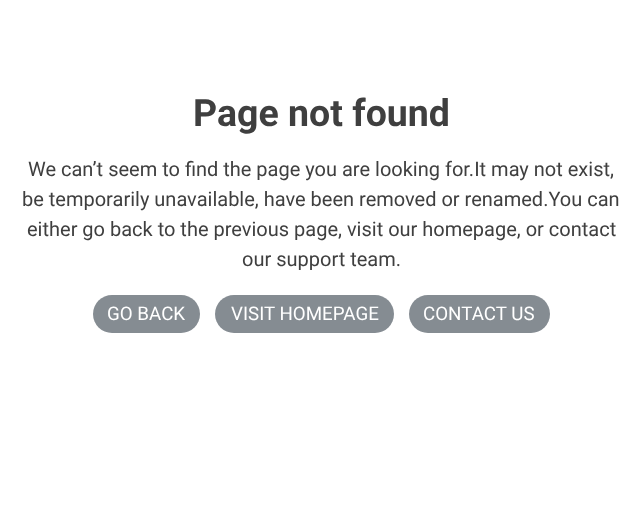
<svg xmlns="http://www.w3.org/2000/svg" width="642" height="528">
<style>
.a{font:bold 37.5px Roboto;fill:#3f3f3f}
.b{font:20px Roboto;fill:#3f3f3f}
.c{font:18.75px Roboto;fill:#fff}
</style>
<rect width="100%" height="100%" fill="#fff"/>
<rect fill="#858c92" x="93" y="295" width="107" height="38" rx="19"/>
<rect fill="#858c92" x="215" y="295" width="179" height="38" rx="19"/>
<rect fill="#858c92" x="409" y="295" width="141" height="38" rx="19"/>
<text class="a" x="193" y="126">Page not found</text>
<text class="b" x="28" y="176">We can’t seem to find the page you are looking for.It may not exist,</text>
<text class="b" x="22" y="206">be temporarily unavailable, have been removed or renamed.You can</text>
<text class="b" x="27" y="236">either go back to the previous page, visit our homepage, or contact</text>
<text class="b" x="242" y="266">our support team.</text>
<text class="c" x="107" y="320">GO BACK</text>
<text class="c" x="231" y="320">VISIT HOMEPAGE</text>
<text class="c" x="423" y="320">CONTACT US</text>
</svg>
